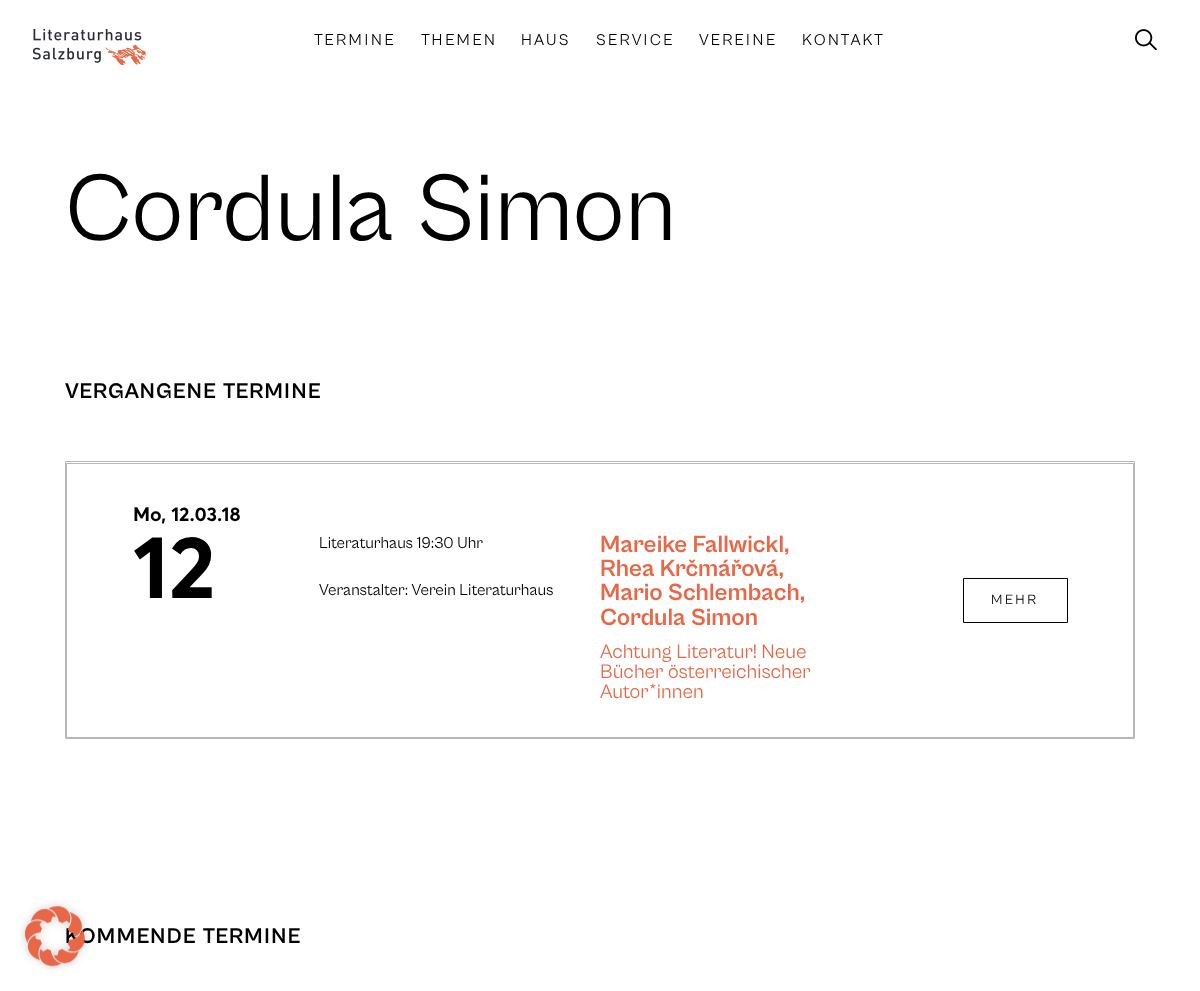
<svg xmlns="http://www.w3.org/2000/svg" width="1200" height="991">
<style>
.a{font:16.25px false;letter-spacing:2.5px;fill:#000}
.b{font:97.5px false;fill:#000}
.c{font:bold 22px false;letter-spacing:1.25px;fill:#000}
.d{font:19.5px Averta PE;fill:#000}
.e{font:88px Averta PE;fill:#000}
.f{font:16.25px false;fill:#000}
.g{font:bold 24.4px false;fill:#e86747}
.h{font:20.25px false;fill:#e86747}
.i{font:14px false;letter-spacing:2.5px;fill:#000}
</style>
<rect width="100%" height="100%" fill="#fff"/>
<image href="1.png" x="33" y="29" width="113" height="36"/>
<image href="2.png" x="1135" y="29" width="22" height="21"/>
<path fill="none" stroke="#b7b7b7" d="M65.5 461.5h1069v277H65.5z"/>
<path fill="none" stroke="#b7b7b7" d="M66.5 463.5h1067v274H66.5z"/>
<path fill="none" stroke="#000" d="M963.5 578.5h104v44H963.5z"/>
<text class="a" x="314" y="45">TERMINE</text>
<text class="a" x="421" y="45">THEMEN</text>
<text class="a" x="521" y="45">HAUS</text>
<text class="a" x="596" y="45">SERVICE</text>
<text class="a" x="699" y="45">VEREINE</text>
<text class="a" x="802" y="45">KONTAKT</text>
<text class="b" x="65" y="240">Cordula Simon</text>
<text class="c" x="65" y="398">VERGANGENE TERMINE</text>
<text class="d" x="133" y="521">Mo, 12.03.18</text>
<text class="e" x="133" y="598">12</text>
<text class="f" x="319" y="548">Literaturhaus 19:30 Uhr</text>
<text class="f" x="319" y="595">Veranstalter: Verein Literaturhaus</text>
<text class="g" x="600" y="552">Mareike Fallwickl,</text>
<text class="g" x="600" y="576">Rhea Krčmářová,</text>
<text class="g" x="600" y="600">Mario Schlembach,</text>
<text class="g" x="600" y="625">Cordula Simon</text>
<text class="h" x="600" y="658">Achtung Literatur! Neue</text>
<text class="h" x="600" y="678">Bücher österreichischer</text>
<text class="h" x="600" y="698">Autor*innen</text>
<text class="i" x="991" y="604">MEHR</text>
<text class="c" x="65" y="943">KOMMENDE TERMINE</text>
<image href="3.png" x="20" y="901" width="70" height="70"/>
</svg>
